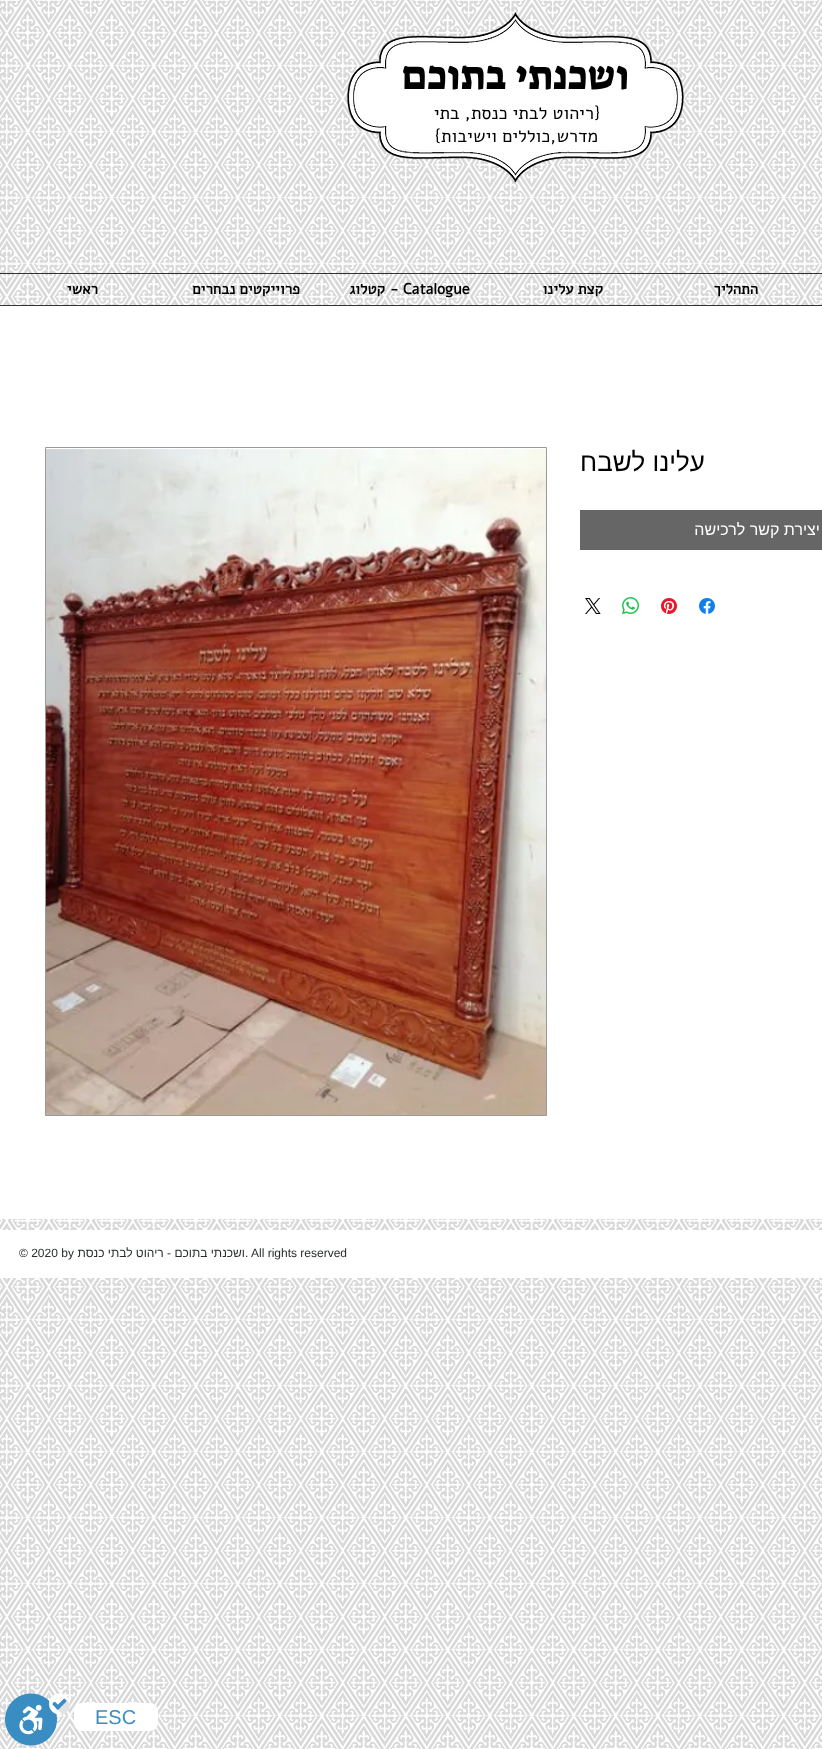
<svg xmlns="http://www.w3.org/2000/svg" width="822" height="1749">
<style>
.a{font:40px Suez One;direction:rtl;fill:#000}
.b{font:18px Alef;direction:rtl;fill:#000}
.c{font:bold 15px Alef;direction:rtl;fill:#000}
.d{font:bold 15px Alef;fill:#000}
.e{font:26px Liberation Sans;direction:rtl;fill:#000}
.f{font:16px Liberation Sans;direction:rtl;fill:#fff}
.g{font:12px Liberation Sans;fill:#292c2d}
.h{font:12px Liberation Sans;direction:rtl;fill:#292c2d}
.i{font:20px Liberation Sans;fill:#3a8dc2}
</style>
<rect width="100%" height="100%" fill="#fff"/>
<image href="1.png" x="0" y="0" width="822" height="1749"/>
<image href="2.png" x="347" y="12" width="337" height="171"/>
<path fill="#333" d="M0 273h822v1H0z"/>
<path fill="#333" d="M0 305h822v1H0z"/>
<path fill="#fff" d="M0 306h822v913H0z"/>
<path fill="#666" d="M580 510h242v40H580z"/>
<image href="3.png" x="699" y="598" width="16" height="16"/>
<image href="4.png" x="661" y="598" width="16" height="16"/>
<image href="5.png" x="622" y="597" width="17" height="17"/>
<image href="6.png" x="585" y="598" width="16" height="16"/>
<path fill="none" stroke="#999" d="M45.5 447.5h501v668H45.5z"/>
<image href="7.png" x="46" y="449" width="500" height="666"/>
<path fill="#fff" d="M0 1230h822v48H0z"/>
<rect fill="#fff" x="74" y="1703" width="84" height="28" rx="8"/>
<image href="8.png" x="5" y="1693" width="65" height="53"/>
<text class="a" x="629" y="89">ושכנתי בתוכם</text>
<text class="b" x="600" y="119">{ריהוט לבתי כנסת, בתי</text>
<text class="b" x="598" y="142">מדרש,כוללים וישיבות}</text>
<text class="c" x="758" y="294">התהליך</text>
<text class="c" x="603" y="294">קצת עלינו</text>
<text class="d" x="390" y="294">- Catalogue</text>
<text class="c" x="385" y="294">קטלוג</text>
<text class="c" x="300" y="294">פרוייקטים נבחרים</text>
<text class="c" x="98" y="294">ראשי</text>
<text class="e" x="705" y="471">עלינו לשבח</text>
<text class="f" x="820" y="535">יצירת קשר לרכישה</text>
<text class="g" x="245" y="1257">. All rights reserved</text>
<text class="h" x="245" y="1257">ושכנתי בתוכם - ריהוט לבתי כנסת</text>
<text class="g" x="19" y="1257">© 2020 by</text>
<text class="i" x="95" y="1724">ESC</text>
</svg>
